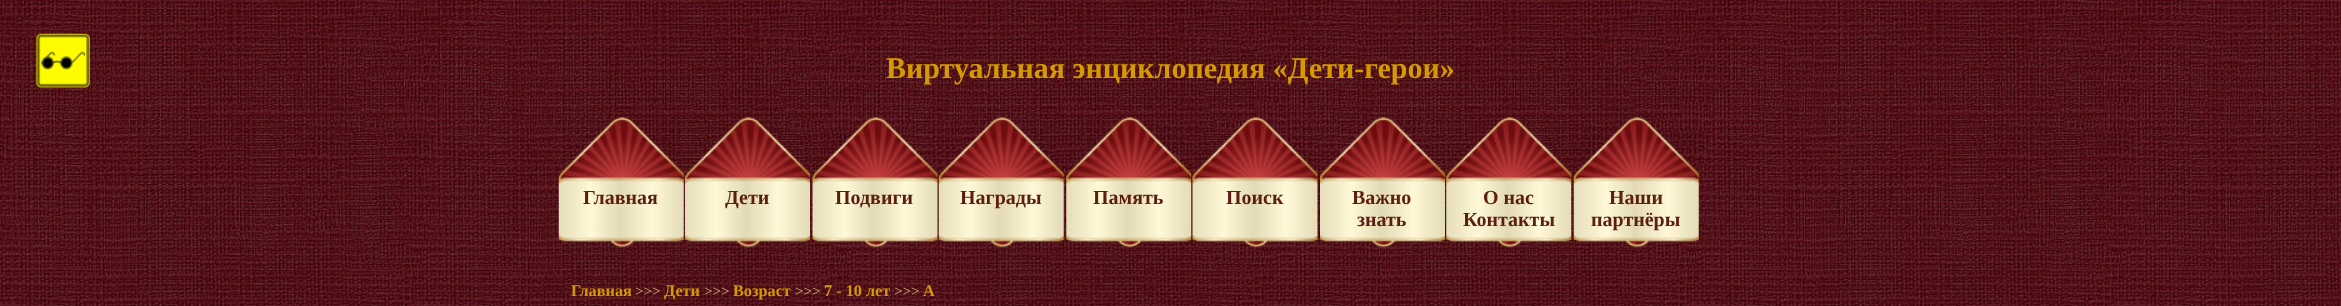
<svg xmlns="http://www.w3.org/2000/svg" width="2341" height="306">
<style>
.a{font:bold 30px Liberation Serif;fill:#d59a00}
.b{font:bold 20px Liberation Serif;fill:#5c1d12}
.c{font:bold 16.25px Liberation Serif;fill:#d59a00}
.d{font:15px Liberation Serif;fill:#cfb17d}
</style>
<rect width="100%" height="100%" fill="#fff"/>
<image href="1.png" x="0" y="0" width="2341" height="306"/>
<image href="2.png" x="36" y="33" width="54" height="55"/>
<image href="3.png" x="558" y="117" width="126" height="131"/>
<image href="4.png" x="685" y="117" width="125" height="131"/>
<image href="5.png" x="812" y="117" width="126" height="131"/>
<image href="6.png" x="938" y="117" width="126" height="131"/>
<image href="7.png" x="1066" y="117" width="126" height="131"/>
<image href="8.png" x="1192" y="117" width="126" height="131"/>
<image href="9.png" x="1320" y="117" width="125" height="131"/>
<image href="10.png" x="1446" y="117" width="126" height="131"/>
<image href="11.png" x="1573" y="117" width="126" height="131"/>
<text class="a" x="886" y="78">Виртуальная энциклопедия «Дети-герои»</text>
<text class="b" x="583" y="204">Главная</text>
<text class="b" x="725" y="204">Дети</text>
<text class="b" x="835" y="204">Подвиги</text>
<text class="b" x="960" y="204">Награды</text>
<text class="b" x="1093" y="204">Память</text>
<text class="b" x="1226" y="204">Поиск</text>
<text class="b" x="1352" y="204">Важно</text>
<text class="b" x="1357" y="226">знать</text>
<text class="b" x="1483" y="204">О нас</text>
<text class="b" x="1463" y="226">Контакты</text>
<text class="b" x="1609" y="204">Наши</text>
<text class="b" x="1591" y="226">партнёры</text>
<text class="c" x="571" y="296">Главная</text>
<text class="d" x="635" y="296">&gt;&gt;&gt;</text>
<text class="c" x="664" y="296">Дети</text>
<text class="d" x="704" y="296">&gt;&gt;&gt;</text>
<text class="c" x="733" y="296">Возраст</text>
<text class="d" x="795" y="296">&gt;&gt;&gt;</text>
<text class="c" x="824" y="296">7 - 10 лет</text>
<text class="d" x="894" y="296">&gt;&gt;&gt;</text>
<text class="c" x="923" y="296">А</text>
</svg>
